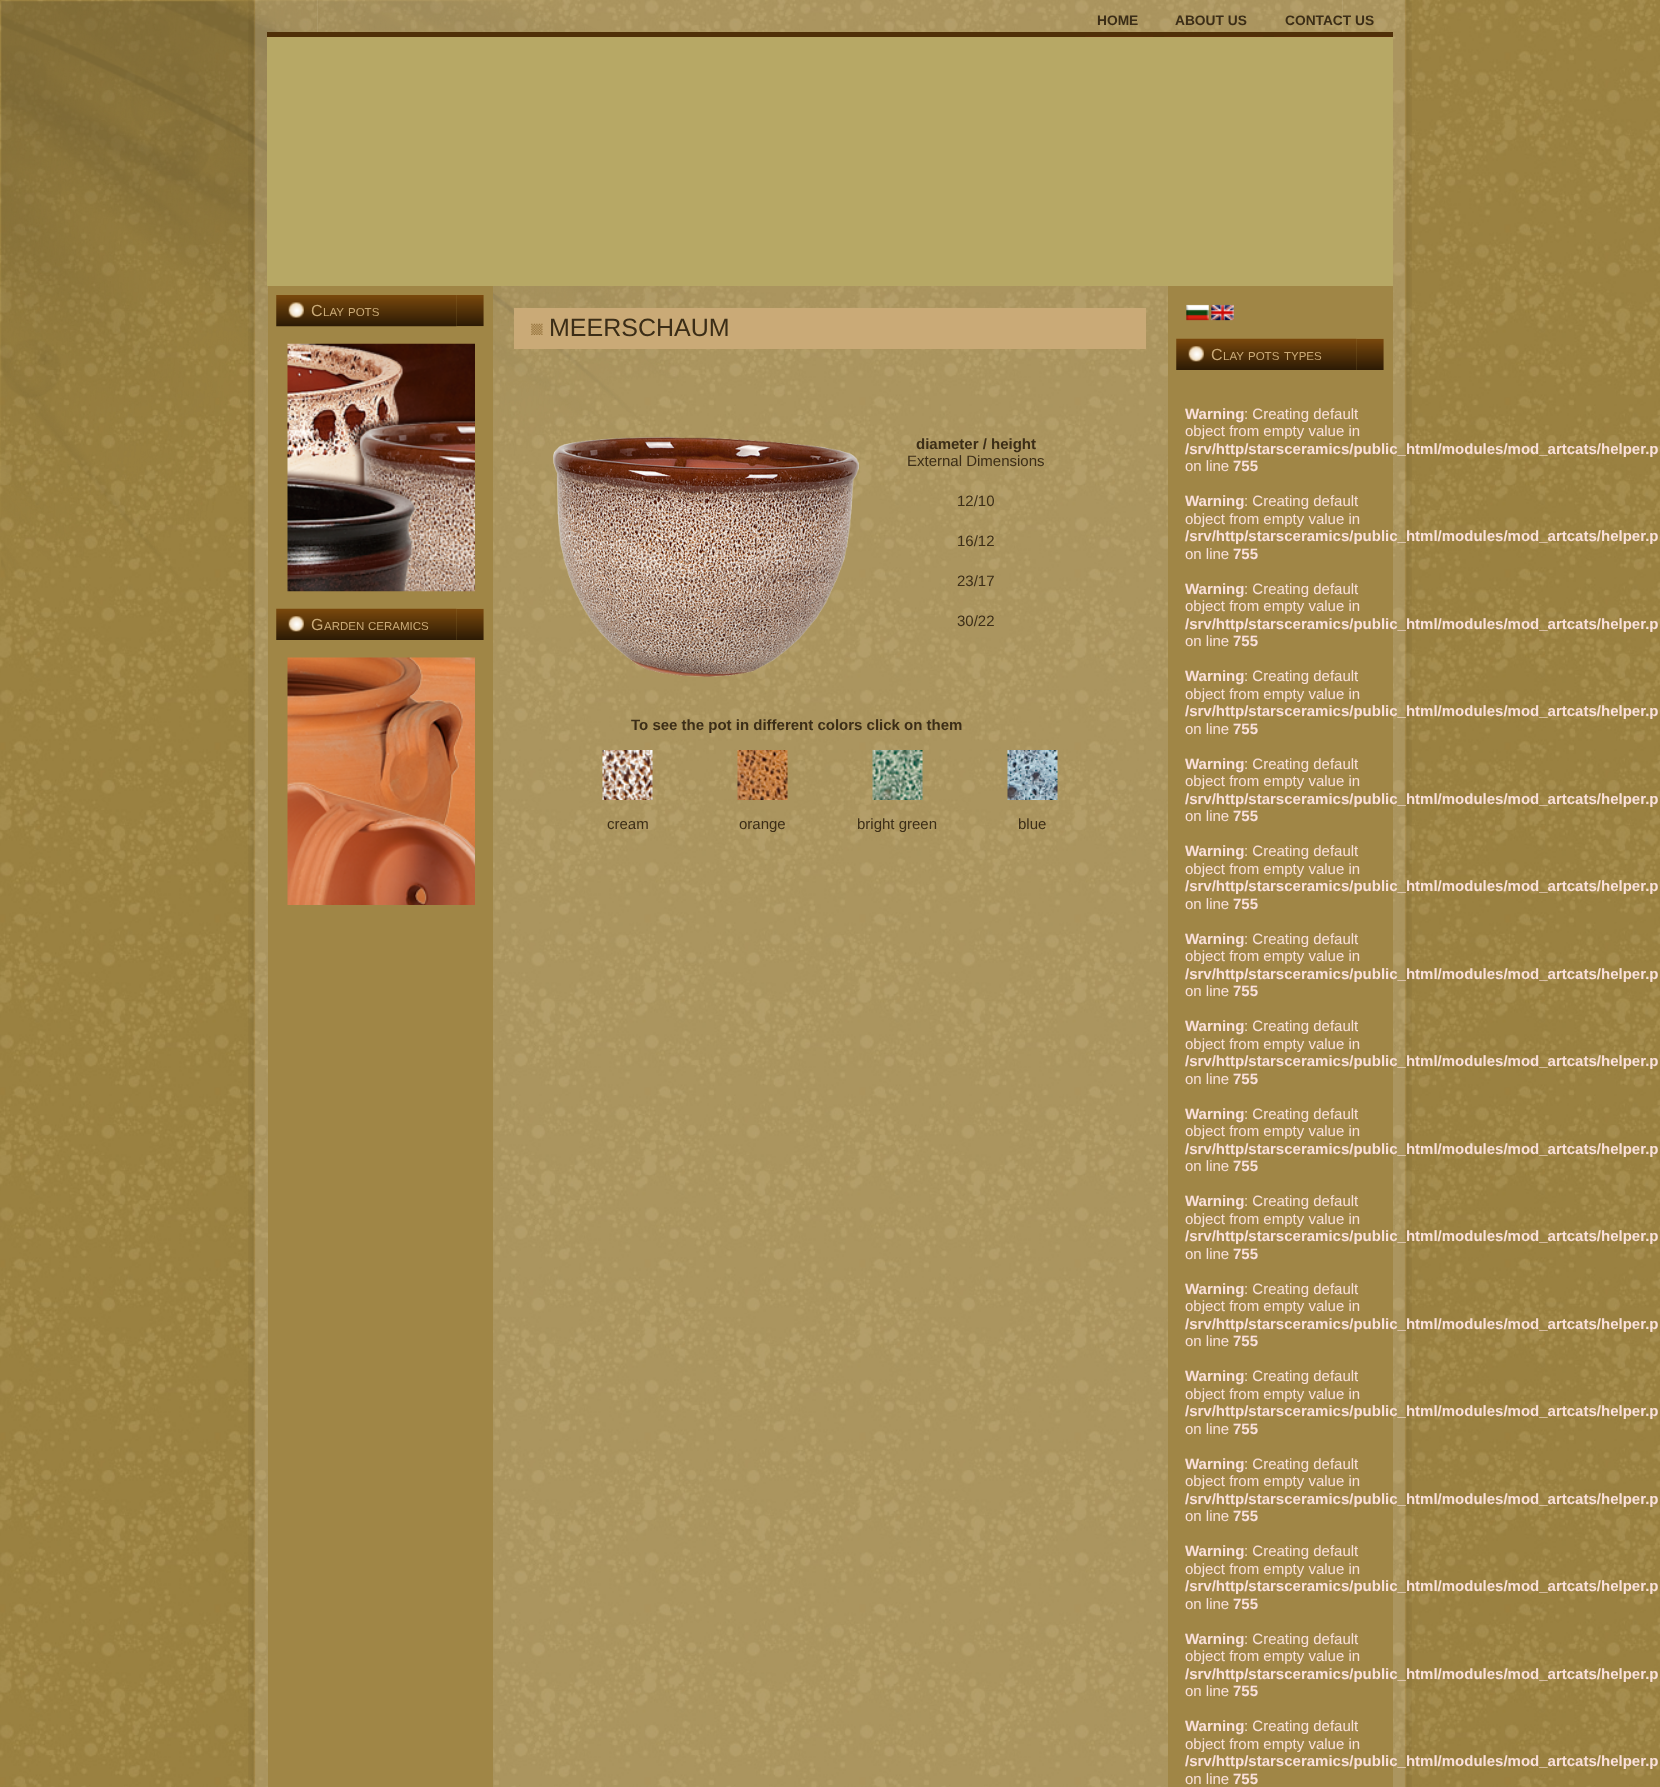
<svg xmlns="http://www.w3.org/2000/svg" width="1660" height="1787">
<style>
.a{font:bold 13.75px Liberation Sans;fill:#3b2d17}
.b{font:16px Liberation Sans;fill:#caaa77}
.c{font:11.5px Liberation Sans;fill:#caaa77}
.d{font:25px Liberation Sans;fill:#3b2d17}
.e{font:bold 15px Liberation Sans;fill:#3b2d17}
.f{font:15px Liberation Sans;fill:#3b2d17}
.g{font:bold 15px Liberation Sans;fill:#fae0db}
.h{font:15px Liberation Sans;fill:#fae0db}
</style>
<rect width="100%" height="100%" fill="#fff"/>
<image href="1.png" x="0" y="0" width="1660" height="1787"/>
<image href="2.png" x="1" y="1" width="690" height="579"/>
<image href="3.png" x="248" y="0" width="70" height="50"/>
<image href="4.png" x="1342" y="0" width="70" height="50"/>
<path fill="#f0e6d733" d="M317 0h1026v32H317z"/>
<image href="5.png" x="248" y="50" width="20" height="1737"/>
<path fill="#4f2f08" d="M267 32h1126v5H267z"/>
<image href="6.png" x="1085" y="36" width="61" height="1"/>
<image href="7.png" x="1146" y="36" width="8" height="1"/>
<image href="8.png" x="1164" y="36" width="92" height="1"/>
<image href="7.png" x="1256" y="36" width="8" height="1"/>
<image href="9.png" x="1274" y="36" width="109" height="1"/>
<image href="10.png" x="1382" y="36" width="8" height="1"/>
<path fill="#b7a865" d="M267 37h1126v249H267z"/>
<path fill="#a08646" d="M268 286h225v1501H268z"/>
<image href="11.png" x="276" y="295" width="181" height="32"/>
<image href="12.png" x="456" y="295" width="28" height="32"/>
<image href="13.png" x="287" y="343" width="188" height="249"/>
<image href="14.png" x="276" y="608" width="181" height="32"/>
<image href="15.png" x="456" y="608" width="28" height="32"/>
<image href="16.png" x="287" y="657" width="188" height="248"/>
<path fill="#f0e6d733" d="M493 286h675v1501H493z"/>
<path fill="#caaa77" d="M514 308h632v41H514z"/>
<image href="17.png" x="531" y="323" width="12" height="12"/>
<image href="18.png" x="553" y="437" width="306" height="240"/>
<image href="19.png" x="602" y="750" width="51" height="50"/>
<image href="20.png" x="737" y="750" width="51" height="50"/>
<image href="21.png" x="872" y="750" width="51" height="50"/>
<image href="22.png" x="1007" y="750" width="51" height="50"/>
<path fill="#a08646" d="M1168 286h225v1501H1168z"/>
<image href="23.png" x="1186" y="304" width="23" height="17"/>
<image href="24.png" x="1211" y="304" width="23" height="17"/>
<image href="14.png" x="1176" y="338" width="181" height="32"/>
<image href="15.png" x="1356" y="338" width="28" height="32"/>
<image href="25.png" x="1393" y="50" width="19" height="1737"/>
<text class="a" x="1097" y="25">HOME</text>
<text class="a" x="1175" y="25">ABOUT US</text>
<text class="a" x="1285" y="25">CONTACT US</text>
<text class="b" x="311" y="316">C</text>
<text class="c" x="323" y="316">LAY</text>
<text class="c" x="348" y="316">POTS</text>
<text class="b" x="311" y="630">G</text>
<text class="c" x="324" y="630">ARDEN</text>
<text class="c" x="368" y="630">CERAMICS</text>
<text class="d" x="549" y="336">MEERSCHAUM</text>
<text class="e" x="916" y="449">diameter / height</text>
<text class="f" x="907" y="466">External Dimensions</text>
<text class="f" x="957" y="506">12/10</text>
<text class="f" x="957" y="546">16/12</text>
<text class="f" x="957" y="586">23/17</text>
<text class="f" x="957" y="626">30/22</text>
<text class="e" x="631" y="730">To see the pot in different colors click on them</text>
<text class="f" x="607" y="829">cream</text>
<text class="f" x="739" y="829">orange</text>
<text class="f" x="857" y="829">bright green</text>
<text class="f" x="1018" y="829">blue</text>
<text class="b" x="1211" y="360">C</text>
<text class="c" x="1223" y="360">LAY</text>
<text class="c" x="1248" y="360">POTS</text>
<text class="c" x="1284" y="360">TYPES</text>
<text class="g" x="1185" y="419">Warning</text>
<text class="h" x="1244" y="419">: Creating default</text>
<text class="h" x="1185" y="436">object from empty value in</text>
<text class="g" x="1185" y="454">/srv/http/starsceramics/public_html/modules/mod_artcats/helper.p</text>
<text class="h" x="1185" y="471">on line</text>
<text class="g" x="1233" y="471">755</text>
<text class="g" x="1185" y="506">Warning</text>
<text class="h" x="1244" y="506">: Creating default</text>
<text class="h" x="1185" y="524">object from empty value in</text>
<text class="g" x="1185" y="541">/srv/http/starsceramics/public_html/modules/mod_artcats/helper.p</text>
<text class="h" x="1185" y="559">on line</text>
<text class="g" x="1233" y="559">755</text>
<text class="g" x="1185" y="594">Warning</text>
<text class="h" x="1244" y="594">: Creating default</text>
<text class="h" x="1185" y="611">object from empty value in</text>
<text class="g" x="1185" y="629">/srv/http/starsceramics/public_html/modules/mod_artcats/helper.p</text>
<text class="h" x="1185" y="646">on line</text>
<text class="g" x="1233" y="646">755</text>
<text class="g" x="1185" y="681">Warning</text>
<text class="h" x="1244" y="681">: Creating default</text>
<text class="h" x="1185" y="699">object from empty value in</text>
<text class="g" x="1185" y="716">/srv/http/starsceramics/public_html/modules/mod_artcats/helper.p</text>
<text class="h" x="1185" y="734">on line</text>
<text class="g" x="1233" y="734">755</text>
<text class="g" x="1185" y="769">Warning</text>
<text class="h" x="1244" y="769">: Creating default</text>
<text class="h" x="1185" y="786">object from empty value in</text>
<text class="g" x="1185" y="804">/srv/http/starsceramics/public_html/modules/mod_artcats/helper.p</text>
<text class="h" x="1185" y="821">on line</text>
<text class="g" x="1233" y="821">755</text>
<text class="g" x="1185" y="856">Warning</text>
<text class="h" x="1244" y="856">: Creating default</text>
<text class="h" x="1185" y="874">object from empty value in</text>
<text class="g" x="1185" y="891">/srv/http/starsceramics/public_html/modules/mod_artcats/helper.p</text>
<text class="h" x="1185" y="909">on line</text>
<text class="g" x="1233" y="909">755</text>
<text class="g" x="1185" y="944">Warning</text>
<text class="h" x="1244" y="944">: Creating default</text>
<text class="h" x="1185" y="961">object from empty value in</text>
<text class="g" x="1185" y="979">/srv/http/starsceramics/public_html/modules/mod_artcats/helper.p</text>
<text class="h" x="1185" y="996">on line</text>
<text class="g" x="1233" y="996">755</text>
<text class="g" x="1185" y="1031">Warning</text>
<text class="h" x="1244" y="1031">: Creating default</text>
<text class="h" x="1185" y="1049">object from empty value in</text>
<text class="g" x="1185" y="1066">/srv/http/starsceramics/public_html/modules/mod_artcats/helper.p</text>
<text class="h" x="1185" y="1084">on line</text>
<text class="g" x="1233" y="1084">755</text>
<text class="g" x="1185" y="1119">Warning</text>
<text class="h" x="1244" y="1119">: Creating default</text>
<text class="h" x="1185" y="1136">object from empty value in</text>
<text class="g" x="1185" y="1154">/srv/http/starsceramics/public_html/modules/mod_artcats/helper.p</text>
<text class="h" x="1185" y="1171">on line</text>
<text class="g" x="1233" y="1171">755</text>
<text class="g" x="1185" y="1206">Warning</text>
<text class="h" x="1244" y="1206">: Creating default</text>
<text class="h" x="1185" y="1224">object from empty value in</text>
<text class="g" x="1185" y="1241">/srv/http/starsceramics/public_html/modules/mod_artcats/helper.p</text>
<text class="h" x="1185" y="1259">on line</text>
<text class="g" x="1233" y="1259">755</text>
<text class="g" x="1185" y="1294">Warning</text>
<text class="h" x="1244" y="1294">: Creating default</text>
<text class="h" x="1185" y="1311">object from empty value in</text>
<text class="g" x="1185" y="1329">/srv/http/starsceramics/public_html/modules/mod_artcats/helper.p</text>
<text class="h" x="1185" y="1346">on line</text>
<text class="g" x="1233" y="1346">755</text>
<text class="g" x="1185" y="1381">Warning</text>
<text class="h" x="1244" y="1381">: Creating default</text>
<text class="h" x="1185" y="1399">object from empty value in</text>
<text class="g" x="1185" y="1416">/srv/http/starsceramics/public_html/modules/mod_artcats/helper.p</text>
<text class="h" x="1185" y="1434">on line</text>
<text class="g" x="1233" y="1434">755</text>
<text class="g" x="1185" y="1469">Warning</text>
<text class="h" x="1244" y="1469">: Creating default</text>
<text class="h" x="1185" y="1486">object from empty value in</text>
<text class="g" x="1185" y="1504">/srv/http/starsceramics/public_html/modules/mod_artcats/helper.p</text>
<text class="h" x="1185" y="1521">on line</text>
<text class="g" x="1233" y="1521">755</text>
<text class="g" x="1185" y="1556">Warning</text>
<text class="h" x="1244" y="1556">: Creating default</text>
<text class="h" x="1185" y="1574">object from empty value in</text>
<text class="g" x="1185" y="1591">/srv/http/starsceramics/public_html/modules/mod_artcats/helper.p</text>
<text class="h" x="1185" y="1609">on line</text>
<text class="g" x="1233" y="1609">755</text>
<text class="g" x="1185" y="1644">Warning</text>
<text class="h" x="1244" y="1644">: Creating default</text>
<text class="h" x="1185" y="1661">object from empty value in</text>
<text class="g" x="1185" y="1679">/srv/http/starsceramics/public_html/modules/mod_artcats/helper.p</text>
<text class="h" x="1185" y="1696">on line</text>
<text class="g" x="1233" y="1696">755</text>
<text class="g" x="1185" y="1731">Warning</text>
<text class="h" x="1244" y="1731">: Creating default</text>
<text class="h" x="1185" y="1749">object from empty value in</text>
<text class="g" x="1185" y="1766">/srv/http/starsceramics/public_html/modules/mod_artcats/helper.p</text>
<text class="h" x="1185" y="1784">on line</text>
<text class="g" x="1233" y="1784">755</text>
</svg>
